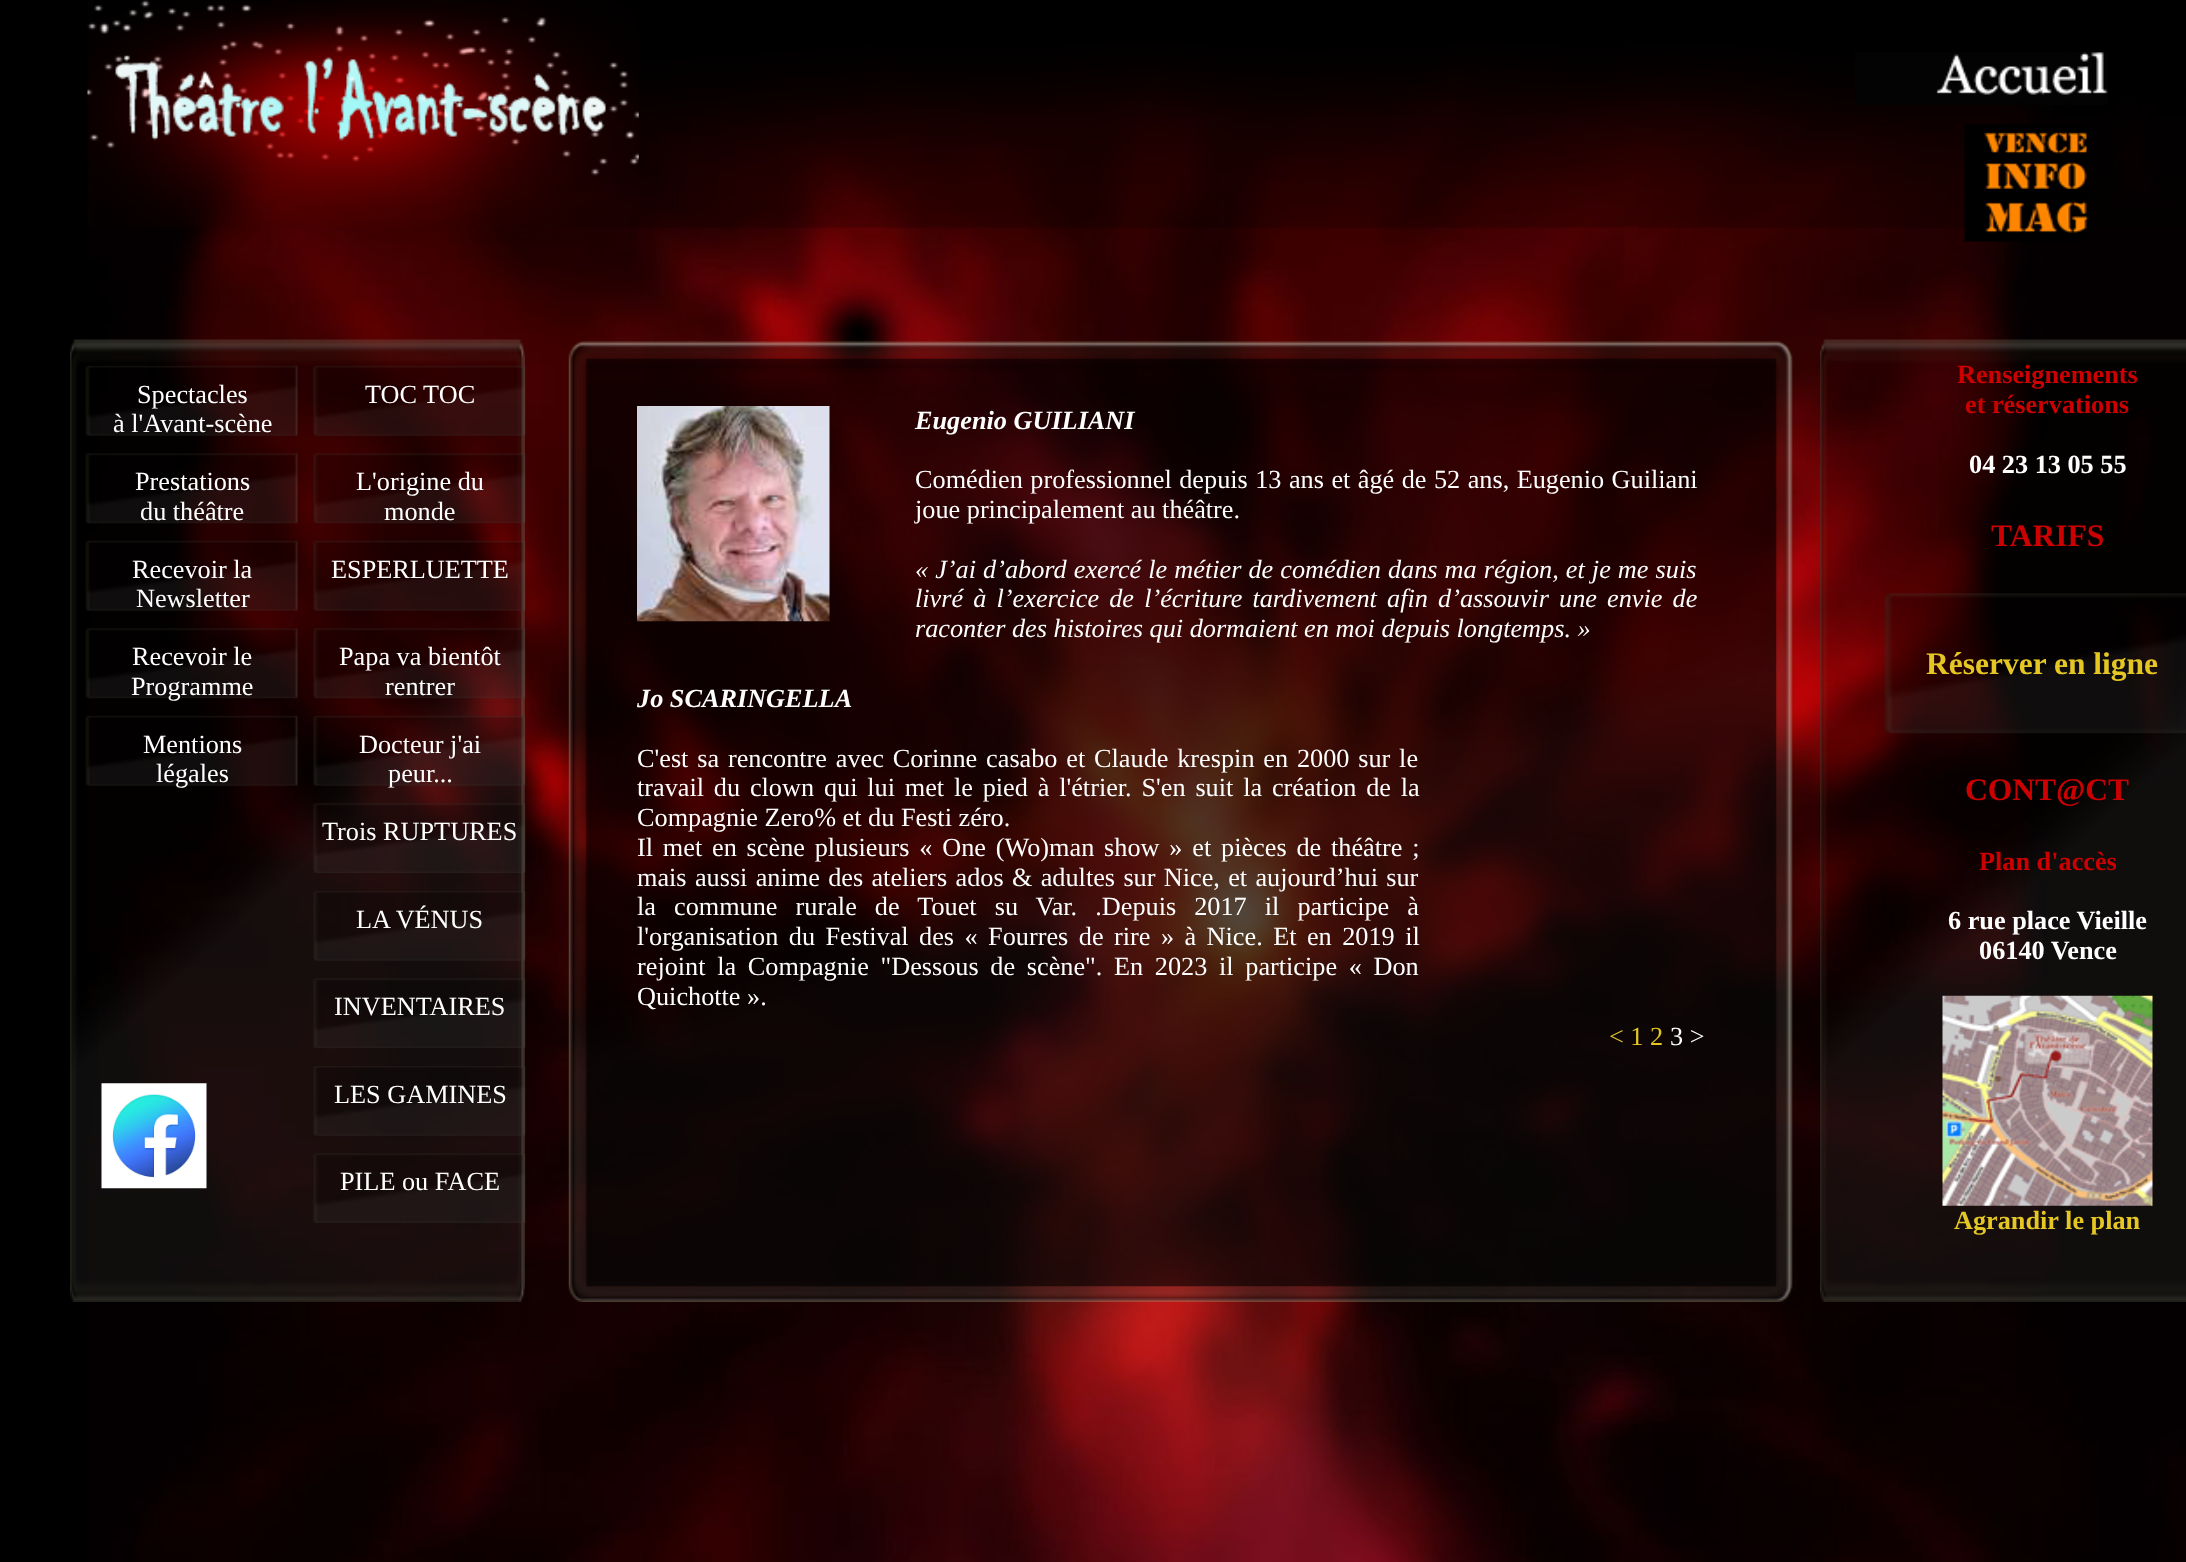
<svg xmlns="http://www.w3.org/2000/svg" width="2186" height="1562">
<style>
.a{font:26.25px Liberation Serif;fill:#fff}
.b{font:italic bold 26.25px Liberation Serif;fill:#fff}
.c{font:italic 26.25px Liberation Serif;fill:#fff}
.d{font:26.25px Liberation Serif;fill:#e5c724}
.e{font:bold 26.25px Liberation Serif;fill:#c00}
.f{font:bold 26.25px Liberation Serif;fill:#fff}
.g{font:bold 31.5px Liberation Serif;fill:#c00}
.h{font:bold 31.5px Liberation Serif;fill:#e5c724}
.i{font:bold 26.25px Liberation Serif;fill:#e5c724}
</style>
<rect width="100%" height="100%" fill="#000"/>
<image href="1.png" x="88" y="0" width="2098" height="1562"/>
<image href="2.png" x="94" y="0" width="2092" height="228"/>
<image href="3.png" x="87" y="0" width="552" height="228"/>
<image href="4.png" x="1855" y="52" width="253" height="53"/>
<image href="5.png" x="1964" y="124" width="125" height="118"/>
<image href="6.png" x="70" y="339" width="455" height="963"/>
<image href="7.png" x="85" y="365" width="213" height="71"/>
<image href="8.png" x="313" y="365" width="213" height="71"/>
<image href="9.png" x="313" y="453" width="213" height="71"/>
<image href="10.png" x="313" y="540" width="213" height="71"/>
<image href="11.png" x="313" y="628" width="213" height="71"/>
<image href="12.png" x="313" y="715" width="213" height="71"/>
<image href="13.png" x="313" y="803" width="213" height="70"/>
<image href="14.png" x="313" y="891" width="213" height="70"/>
<image href="15.png" x="313" y="978" width="213" height="70"/>
<image href="16.png" x="313" y="1066" width="213" height="70"/>
<image href="17.png" x="313" y="1153" width="213" height="70"/>
<image href="18.png" x="85" y="453" width="213" height="71"/>
<image href="19.png" x="85" y="540" width="213" height="71"/>
<image href="20.png" x="85" y="628" width="213" height="71"/>
<image href="21.png" x="85" y="715" width="213" height="71"/>
<image href="22.png" x="101" y="1083" width="106" height="106"/>
<image href="23.png" x="568" y="340" width="1226" height="962"/>
<image href="24.png" x="586" y="358" width="1191" height="929"/>
<image href="25.png" x="637" y="406" width="193" height="216"/>
<image href="26.png" x="1820" y="339" width="366" height="963"/>
<image href="27.png" x="1884" y="593" width="302" height="141"/>
<image href="28.png" x="1942" y="995" width="211" height="211"/>
<text class="a" x="137" y="403">Spectacles</text>
<text class="a" x="113" y="432">à l'Avant-scène</text>
<text class="a" x="365" y="403">TOC TOC</text>
<text class="a" x="356" y="490">L'origine du</text>
<text class="a" x="384" y="520">monde</text>
<text class="a" x="331" y="578">ESPERLUETTE</text>
<text class="a" x="339" y="665">Papa va bientôt</text>
<text class="a" x="385" y="695">rentrer</text>
<text class="a" x="359" y="753">Docteur j'ai</text>
<text class="a" x="388" y="782">peur...</text>
<text class="a" x="322" y="840">Trois RUPTURES</text>
<text class="a" x="356" y="928">LA VÉNUS</text>
<text class="a" x="334" y="1015">INVENTAIRES</text>
<text class="a" x="334" y="1103">LES GAMINES</text>
<text class="a" x="340" y="1190">PILE ou FACE</text>
<text class="a" x="135" y="490">Prestations</text>
<text class="a" x="140" y="520">du théâtre</text>
<text class="a" x="132" y="578">Recevoir la</text>
<text class="a" x="136" y="607">Newsletter</text>
<text class="a" x="132" y="665">Recevoir le</text>
<text class="a" x="131" y="695">Programme</text>
<text class="a" x="143" y="753">Mentions</text>
<text class="a" x="156" y="782">légales</text>
<text class="b" x="915" y="429">Eugenio GUILIANI</text>
<text class="a" x="915" y="488" word-spacing="0.9">Comédien professionnel depuis 13 ans et âgé de 52 ans, Eugenio Guiliani</text>
<text class="a" x="915" y="518">joue principalement au théâtre.</text>
<text class="c" x="915" y="578" word-spacing="0.5">« J’ai d’abord exercé le métier de comédien dans ma région, et je me suis</text>
<text class="c" x="915" y="607" word-spacing="3.6">livré à l’exercice de l’écriture tardivement afin d’assouvir une envie de</text>
<text class="c" x="915" y="637">raconter des histoires qui dormaient en moi depuis longtemps. »</text>
<text class="b" x="637" y="707">Jo SCARINGELLA</text>
<text class="a" x="637" y="767" word-spacing="2.25">C'est sa rencontre avec Corinne casabo et Claude krespin en 2000 sur le</text>
<text class="a" x="637" y="796" word-spacing="3.25">travail du clown qui lui met le pied à l'étrier. S'en suit la création de la</text>
<text class="a" x="637" y="826">Compagnie Zero% et du Festi zéro.</text>
<text class="a" x="637" y="856" word-spacing="3.25">Il met en scène plusieurs « One (Wo)man show » et pièces de théâtre ;</text>
<text class="a" x="637" y="886" word-spacing="1.75">mais aussi anime des ateliers ados &amp; adultes sur Nice, et aujourd’hui sur</text>
<text class="a" x="637" y="915" word-spacing="11.5">la commune rurale de Touet su Var. .Depuis 2017 il participe à</text>
<text class="a" x="637" y="945" word-spacing="3.9">l'organisation du Festival des « Fourres de rire » à Nice. Et en 2019 il</text>
<text class="a" x="637" y="975" word-spacing="5.1">rejoint la Compagnie "Dessous de scène". En 2023 il participe « Don</text>
<text class="a" x="637" y="1005">Quichotte ».</text>
<text class="d" x="1609" y="1045">&lt; 1 2</text>
<text class="a" x="1670" y="1045">3 &gt;</text>
<text class="e" x="1957" y="383">Renseignements</text>
<text class="e" x="1965" y="413">et réservations</text>
<text class="f" x="1969" y="473">04 23 13 05 55</text>
<text class="g" x="1991" y="546">TARIFS</text>
<text class="h" x="1926" y="674">Réserver en ligne</text>
<text class="g" x="1965" y="800">CONT@CT</text>
<text class="e" x="1979" y="870">Plan d'accès</text>
<text class="f" x="1948" y="929">6 rue place Vieille</text>
<text class="f" x="1979" y="959">06140 Vence</text>
<text class="i" x="1954" y="1229">Agrandir le plan</text>
</svg>
